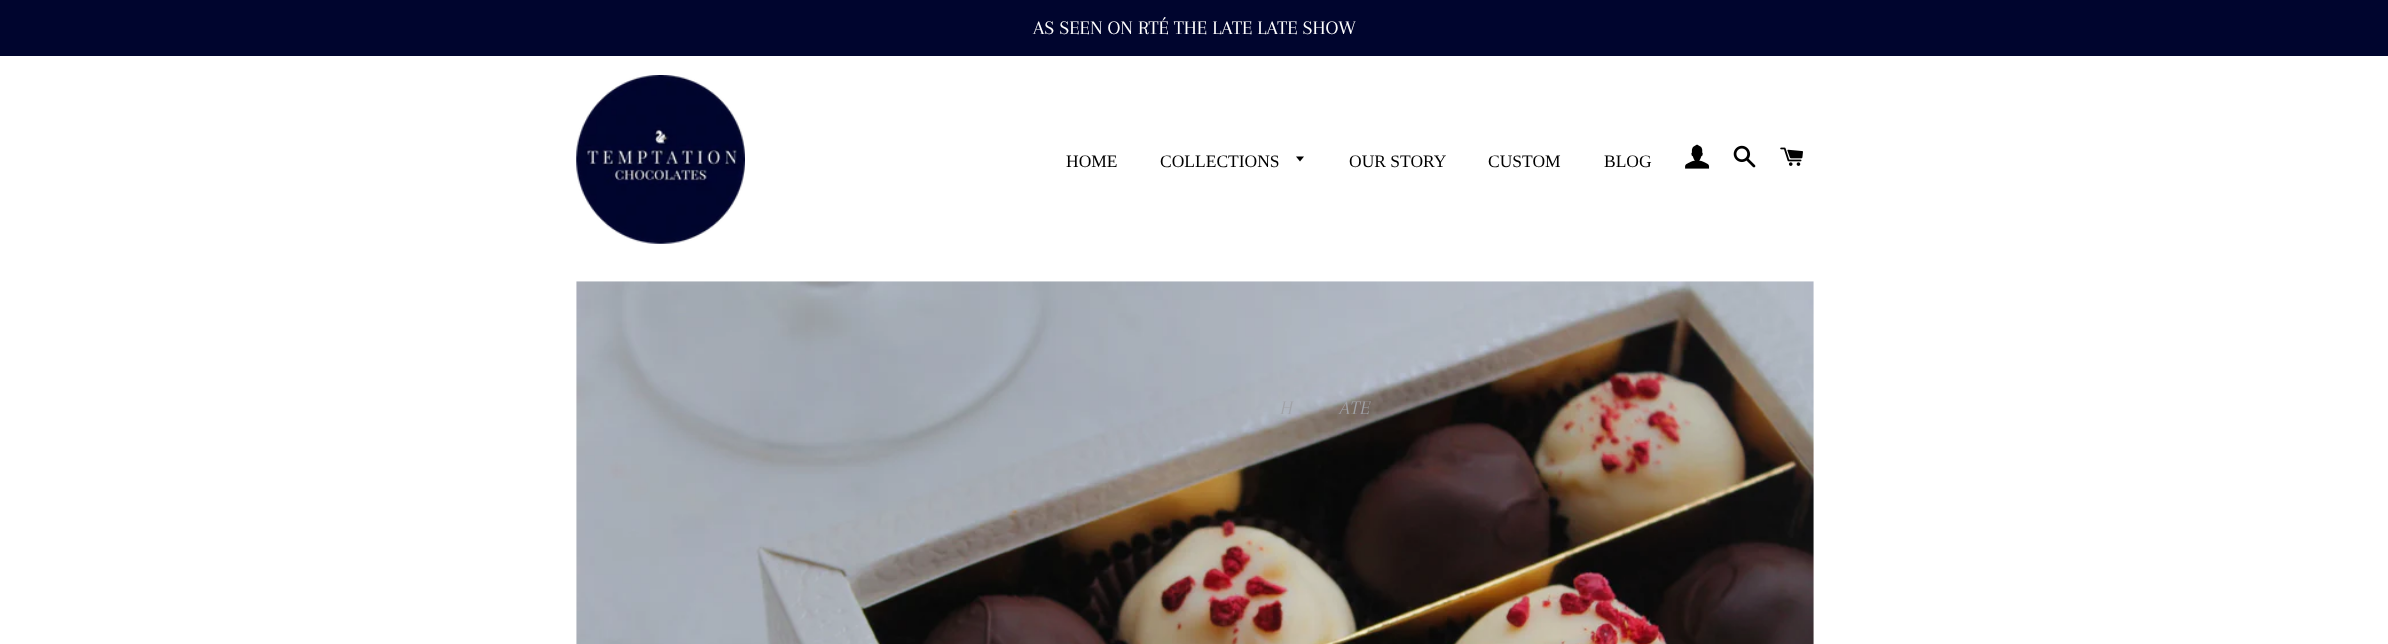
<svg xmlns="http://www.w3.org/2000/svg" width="2388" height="644">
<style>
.a{font:20px Arapey;fill:#fff}
.b{font:17.5px Liberation Serif;fill:#000}
.c{font:italic 20px Arapey;fill:#a1a3a8}
</style>
<rect width="100%" height="100%" fill="#fff"/>
<path fill="#00052e" d="M0 0h2388v56H0z"/>
<image href="1.png" x="576" y="75" width="169" height="169"/>
<path fill="#000" d="M1296 156.5l4 5l4-5z"/>
<image href="2.png" x="1685" y="144" width="25" height="25"/>
<image href="3.png" x="1733" y="145" width="23" height="23"/>
<image href="4.png" x="1780" y="147" width="23" height="19"/>
<image href="5.png" x="576" y="281" width="1238" height="363"/>
<text class="a" x="1033" y="34">AS SEEN ON RTÉ THE LATE LATE SHOW</text>
<text class="b" x="1066" y="167">HOME</text>
<text class="b" x="1160" y="167">COLLECTIONS</text>
<text class="c" x="1280" y="414">H</text>
<text class="c" x="1340" y="414">ATE</text>
<text class="b" x="1349" y="167">OUR STORY</text>
<text class="b" x="1488" y="167">CUSTOM</text>
<text class="b" x="1604" y="167">BLOG</text>
</svg>
